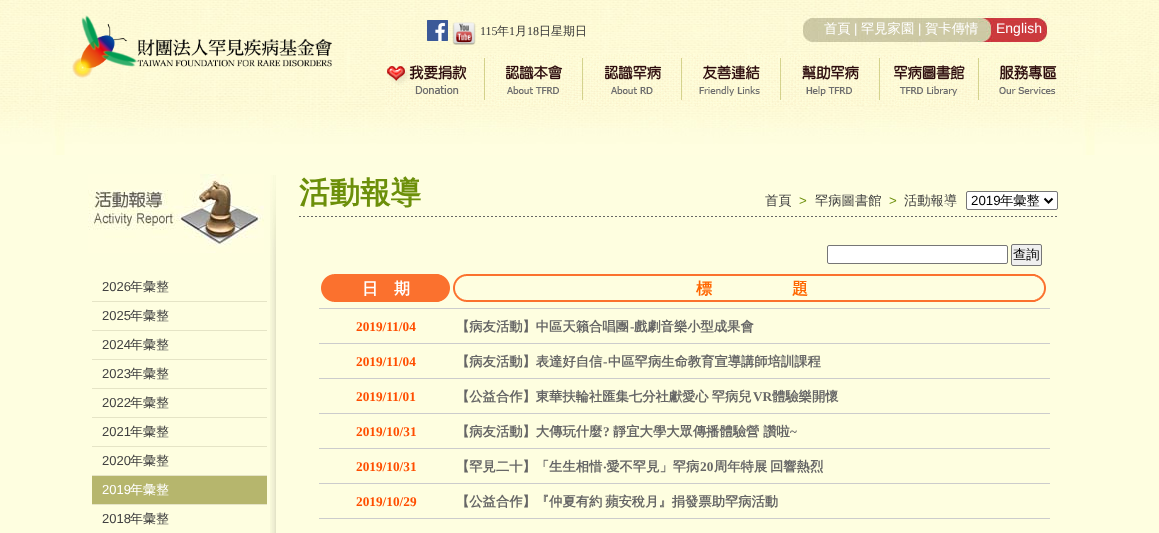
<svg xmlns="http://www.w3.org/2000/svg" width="1159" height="533">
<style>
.a{font:12px Liberation Serif;fill:#363636}
.b{font:500 12px WenQuanYi Zen Hei;fill:#363636}
.c{font:500 13.3px WenQuanYi Zen Hei;fill:#fff}
.d{font:13px Liberation Sans;fill:#fff}
.e{font:14px Liberation Sans;fill:#fff}
.f{font:13px Liberation Sans;fill:#414141}
.g{font:500 13px WenQuanYi Zen Hei;fill:#414141}
.h{font:500 13px WenQuanYi Zen Hei;fill:#fff}
.i{font:bold 30.5px WenQuanYi Zen Hei;fill:#6c8f0a}
.j{font:500 13.3px WenQuanYi Zen Hei;fill:#414141}
.k{font:13.3px Liberation Sans;fill:#6c8f0a}
.l{font:13.3px Liberation Sans;fill:#000}
.m{font:500 13.3px WenQuanYi Zen Hei;fill:#000}
.n{font:bold 16px WenQuanYi Zen Hei;fill:#fff}
.o{font:bold 16px WenQuanYi Zen Hei;fill:#f60}
.p{font:bold 13.3px Liberation Serif;fill:#ff4e00}
.q{font:bold 13.3px WenQuanYi Zen Hei;fill:#666}
.r{font:bold 13.3px Liberation Serif;fill:#666}
.s{font:bold 13.3px Noto Sans;fill:#666}
</style>
<rect width="100%" height="100%" fill="#fefee0"/>
<image href="1.png" x="0" y="0" width="1159" height="155"/>
<image href="2.png" x="72" y="15" width="260" height="63"/>
<image href="3.png" x="427" y="20" width="21" height="21"/>
<image href="4.png" x="452" y="22" width="24" height="23"/>
<image href="5.png" x="802" y="15" width="246" height="31"/>
<image href="6.png" x="385" y="54" width="99" height="52"/>
<image href="7.png" x="484" y="54" width="99" height="52"/>
<image href="8.png" x="583" y="54" width="99" height="52"/>
<image href="9.png" x="682" y="54" width="99" height="52"/>
<image href="10.png" x="781" y="54" width="99" height="52"/>
<image href="11.png" x="880" y="54" width="99" height="52"/>
<image href="12.png" x="979" y="54" width="99" height="52"/>
<image href="13.png" x="270" y="175" width="6" height="358"/>
<image href="14.png" x="88" y="174" width="176" height="79"/>
<path fill="#e5e4c6" d="M92 301h175v1H92z"/>
<path fill="#e5e4c6" d="M92 330h175v1H92z"/>
<path fill="#e5e4c6" d="M92 359h175v1H92z"/>
<path fill="#e5e4c6" d="M92 388h175v1H92z"/>
<path fill="#e5e4c6" d="M92 417h175v1H92z"/>
<path fill="#e5e4c6" d="M92 446h175v1H92z"/>
<path fill="#e5e4c6" d="M92 475h175v1H92z"/>
<path fill="#b6b66d" d="M92 476h175v28H92z"/>
<path fill="#e5e4c6" d="M92 504h175v1H92z"/>
<rect fill="#fff" stroke="#767676" x="966.5" y="191.5" width="91" height="18" rx="1.5"/>
<path fill="none" stroke="#000" stroke-width="2" d="M1044.5 198.5l4 4l4-4"/>
<image href="15.png" x="299" y="216" width="758" height="1"/>
<rect fill="#fff" stroke="#767676" x="827.5" y="245.5" width="180" height="18" rx="1.5"/>
<rect fill="#efefef" stroke="#767676" x="1011.5" y="244.5" width="30" height="21" rx="1.5"/>
<image href="16.png" x="321" y="274" width="725" height="28"/>
<path fill="#ccc" d="M319 308h731v1H319z"/>
<path fill="#ccc" d="M319 343h731v1H319z"/>
<path fill="#ccc" d="M319 378h731v1H319z"/>
<path fill="#ccc" d="M319 413h731v1H319z"/>
<path fill="#ccc" d="M319 448h731v1H319z"/>
<path fill="#ccc" d="M319 483h731v1H319z"/>
<path fill="#ccc" d="M319 518h731v1H319z"/>
<text class="a" x="480" y="35">115</text>
<text class="b" x="497" y="35">年</text>
<text class="a" x="509" y="35">1</text>
<text class="b" x="515" y="35">月</text>
<text class="a" x="527" y="35">18</text>
<text class="b" x="539" y="35">日星期日</text>
<text class="c" x="824" y="33">首頁</text>
<text class="d" x="854" y="33">|</text>
<text class="c" x="861" y="33">罕見家園</text>
<text class="d" x="918" y="33">|</text>
<text class="c" x="925" y="33">賀卡傳情</text>
<text class="e" x="996" y="33">English</text>
<text class="f" x="102" y="291">2026</text>
<text class="g" x="130" y="291">年彙整</text>
<text class="f" x="102" y="320">2025</text>
<text class="g" x="130" y="320">年彙整</text>
<text class="f" x="102" y="349">2024</text>
<text class="g" x="130" y="349">年彙整</text>
<text class="f" x="102" y="378">2023</text>
<text class="g" x="130" y="378">年彙整</text>
<text class="f" x="102" y="407">2022</text>
<text class="g" x="130" y="407">年彙整</text>
<text class="f" x="102" y="436">2021</text>
<text class="g" x="130" y="436">年彙整</text>
<text class="f" x="102" y="465">2020</text>
<text class="g" x="130" y="465">年彙整</text>
<text class="d" x="102" y="494">2019</text>
<text class="h" x="130" y="494">年彙整</text>
<text class="f" x="102" y="523">2018</text>
<text class="g" x="130" y="523">年彙整</text>
<text class="i" x="299" y="203">活動報導</text>
<text class="j" x="765" y="205">首頁</text>
<text class="k" x="799" y="205">&gt;</text>
<text class="j" x="815" y="205">罕病圖書館</text>
<text class="k" x="889" y="205">&gt;</text>
<text class="j" x="904" y="205">活動報導</text>
<text class="l" x="971" y="205">2019</text>
<text class="m" x="1000" y="205">年彙整</text>
<text class="m" x="1013" y="259">查詢</text>
<text class="n" x="362" y="294">日　期</text>
<text class="o" x="696" y="294">標　　　　　題</text>
<text class="p" x="356" y="331">2019/11/04</text>
<text class="q" x="456" y="331">【病友活動】中區天籟合唱團</text>
<text class="r" x="630" y="331">-</text>
<text class="q" x="634" y="331">戲劇音樂小型成果會</text>
<text class="p" x="356" y="366">2019/11/04</text>
<text class="q" x="456" y="366">【病友活動】表達好自信</text>
<text class="r" x="603" y="366">-</text>
<text class="q" x="608" y="366">中區罕病生命教育宣導講師培訓課程</text>
<text class="p" x="356" y="401">2019/11/01</text>
<text class="q" x="456" y="401" word-spacing="-1">【公益合作】東華扶輪社匯集七分社獻愛心 罕病兒</text>
<text class="r" x="753" y="401">VR</text>
<text class="q" x="772" y="401">體驗樂開懷</text>
<text class="p" x="356" y="436">2019/10/31</text>
<text class="q" x="456" y="436">【病友活動】大傳玩什麼</text>
<text class="r" x="603" y="436">?</text>
<text class="q" x="613" y="436">靜宜大學大眾傳播體驗營 讚啦</text>
<text class="r" x="790" y="436">~</text>
<text class="p" x="356" y="471">2019/10/31</text>
<text class="q" x="456" y="471">【罕見二十】「生生相惜 愛不罕見」罕病</text>
<text class="r" x="700" y="471">20</text>
<text class="q" x="714" y="471">周年特展</text>
<text class="q" x="770" y="471">回響熱烈</text>
<text class="s" x="603" y="471">‧</text>
<text class="p" x="356" y="506">2019/10/29</text>
<text class="q" x="456" y="506" word-spacing="-1">【公益合作】『仲夏有約 蘋安稅月』捐發票助罕病活動</text>
</svg>
